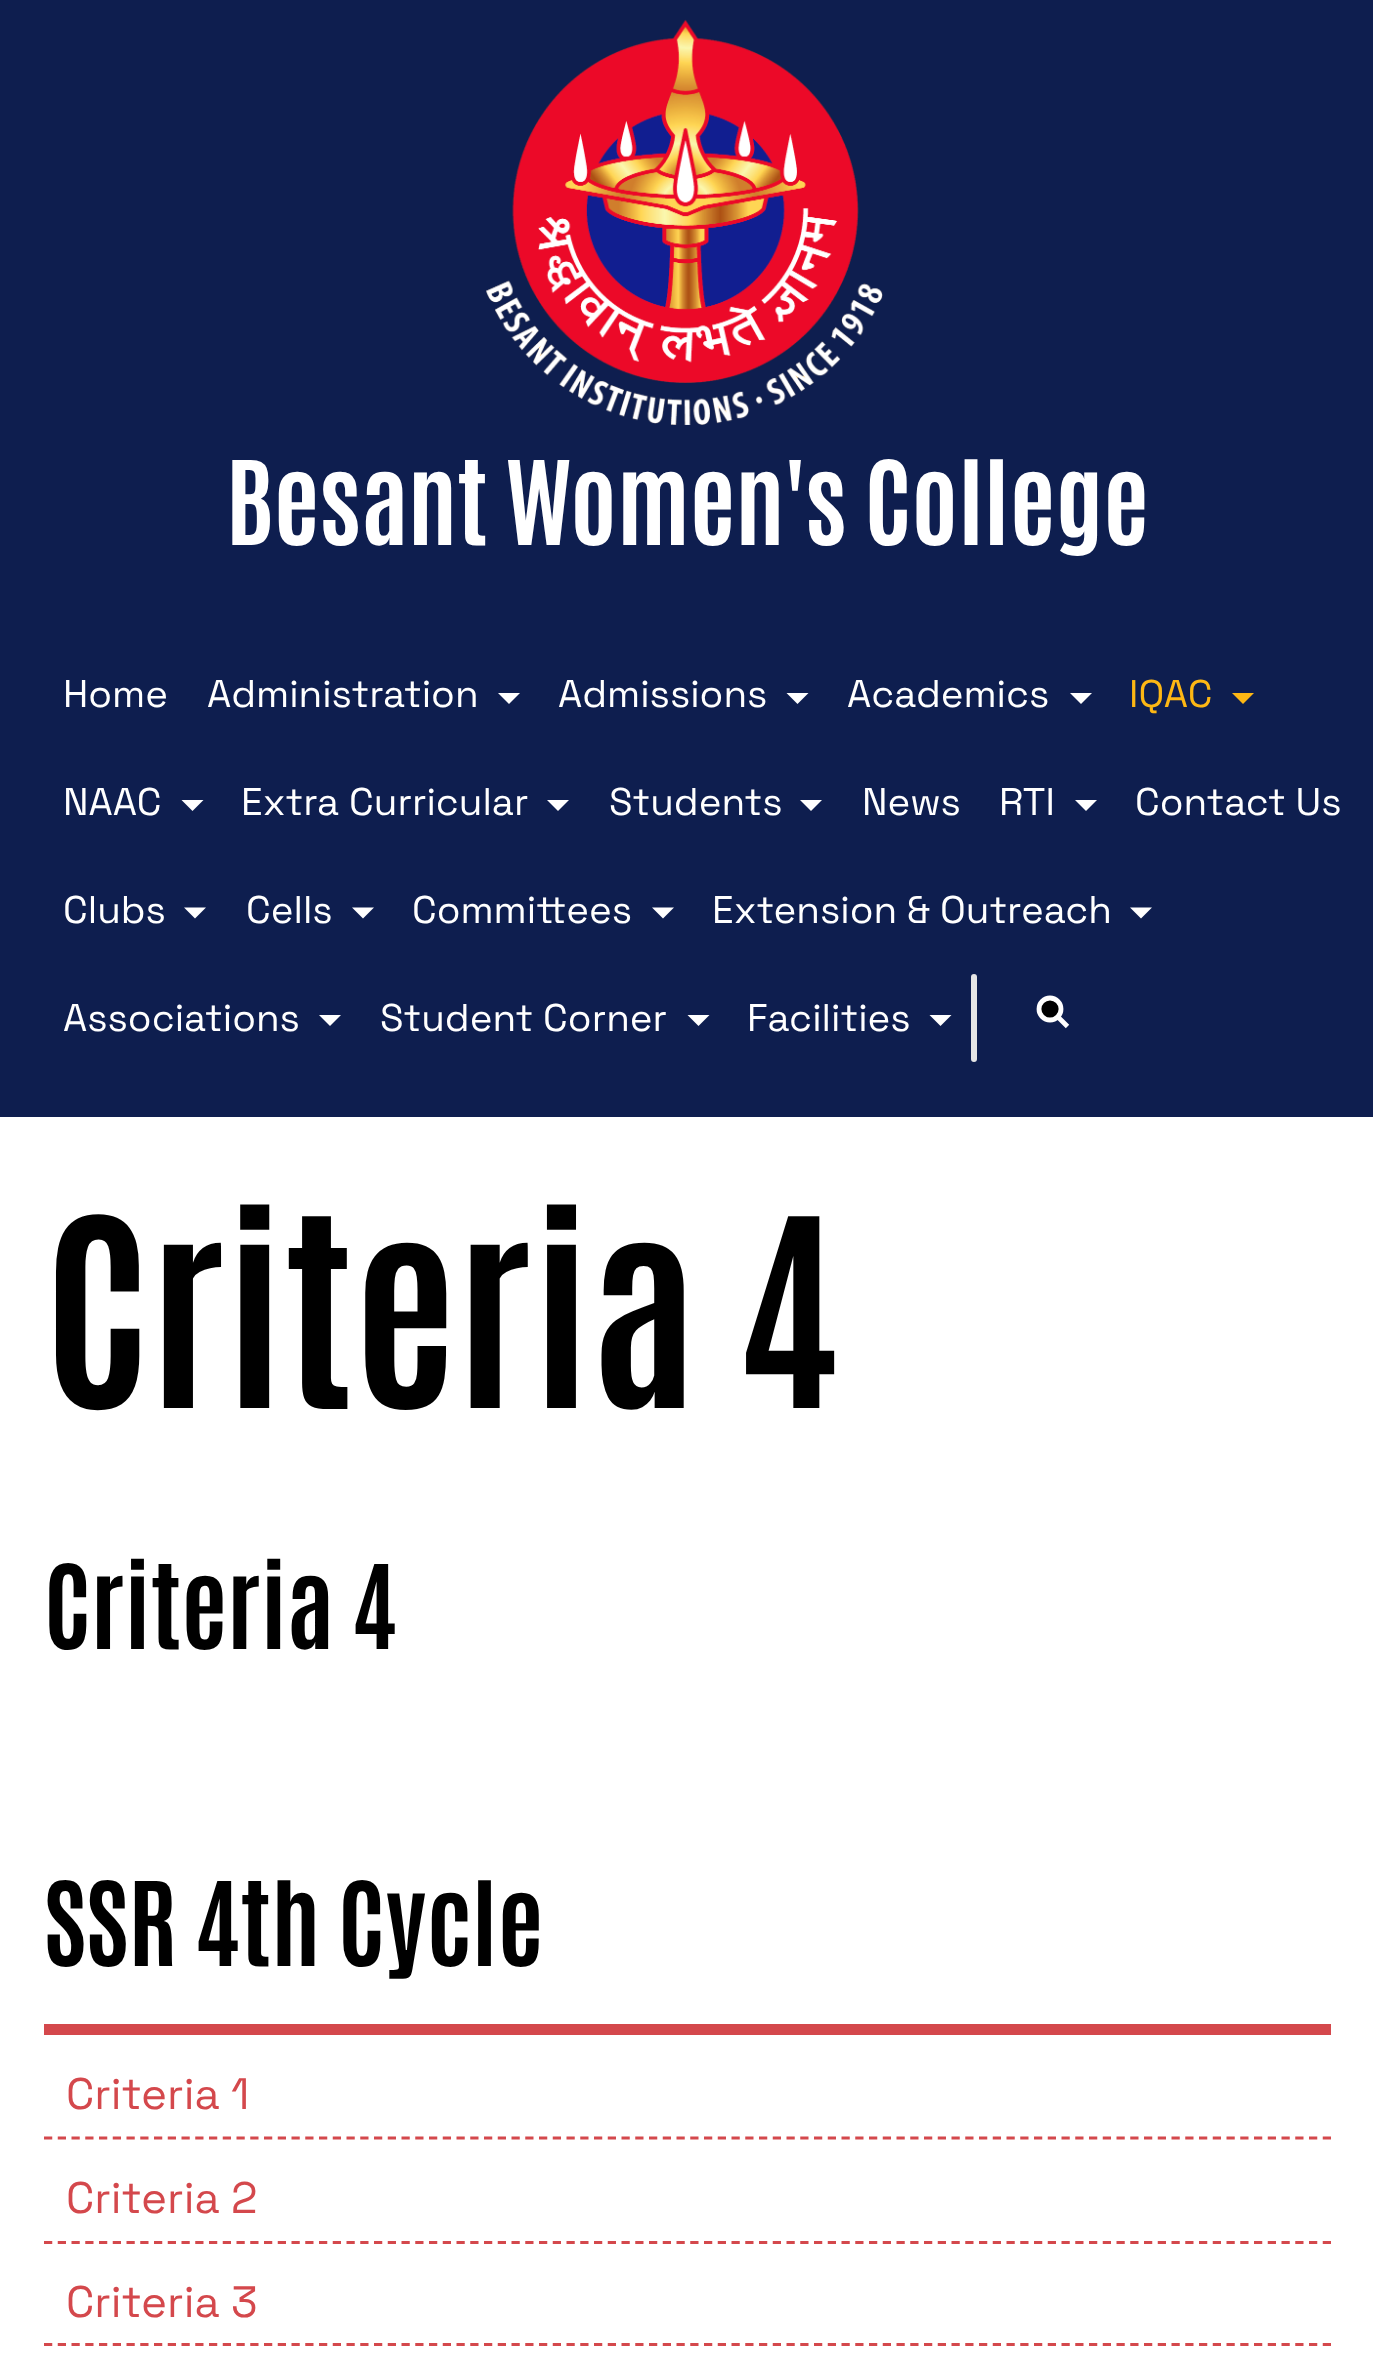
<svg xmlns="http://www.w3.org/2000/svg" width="1373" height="2376">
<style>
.a{font:bold 99px Antonio;fill:#fff}
.b{font:38.5px Space Grotesk;fill:#fff}
.c{font:38.5px Space Grotesk;fill:#fdb714}
.d{font:bold 223px Antonio;fill:#000}
.e{font:bold 99px Antonio;fill:#000}
.f{font:44px Space Grotesk;fill:#d4484c}
</style>
<rect width="100%" height="100%" fill="#fff"/>
<path fill="#0e1e4f" d="M0 0h1373v1117H0z"/>
<image href="1.png" x="486" y="19" width="397" height="406"/>
<path fill="#fff" d="M498 693h22l-11 11z"/>
<path fill="#fff" d="M786.5 693h22l-11 11z"/>
<path fill="#fff" d="M1070 693h22l-11 11z"/>
<path fill="#fdb714" d="M1232 693h22l-11 11z"/>
<path fill="#fff" d="M181.5 800h22l-11 11z"/>
<path fill="#fff" d="M547 800h22l-11 11z"/>
<path fill="#fff" d="M800 800h22l-11 11z"/>
<path fill="#fff" d="M1075 800h22l-11 11z"/>
<path fill="#fff" d="M184 907.5h22l-11 11z"/>
<path fill="#fff" d="M352 907.5h22l-11 11z"/>
<path fill="#fff" d="M652 907.5h22l-11 11z"/>
<path fill="#fff" d="M1130 907.5h22l-11 11z"/>
<path fill="#fff" d="M319 1015h22l-11 11z"/>
<path fill="#fff" d="M687.5 1015h22l-11 11z"/>
<path fill="#fff" d="M929.5 1015h22l-11 11z"/>
<rect fill="#e6e6e6" x="971" y="974" width="6" height="88" rx="3"/>
<circle fill="#000" stroke="#fff" stroke-width="4.8" cx="1050" cy="1009" r="11"/>
<path fill="none" stroke="#fff" stroke-width="4.8" d="M1067.5 1026.5l-9.5-9.5"/>
<path fill="#d4484c" d="M44 2024h1287v11H44z"/>
<path fill="none" stroke="#d4484c" stroke-width="2.8" stroke-dasharray="8.25 5.5" d="M44 2138h1287"/>
<path fill="none" stroke="#d4484c" stroke-width="2.8" stroke-dasharray="8.25 5.5" d="M44 2242.5h1287"/>
<path fill="none" stroke="#d4484c" stroke-width="2.8" stroke-dasharray="8.25 5.5" d="M44 2344.5h1287"/>
<text class="a" x="226" y="545">Besant Women's College</text>
<text class="b" x="63" y="707">Home</text>
<text class="b" x="207" y="707">Administration</text>
<text class="b" x="558" y="707">Admissions</text>
<text class="b" x="847" y="707">Academics</text>
<text class="c" x="1129" y="707">IQAC</text>
<text class="b" x="63" y="815">NAAC</text>
<text class="b" x="241" y="815">Extra Curricular</text>
<text class="b" x="609" y="815">Students</text>
<text class="b" x="862" y="815">News</text>
<text class="b" x="999" y="815">RTI</text>
<text class="b" x="1135" y="815">Contact Us</text>
<text class="b" x="63" y="923">Clubs</text>
<text class="b" x="246" y="923">Cells</text>
<text class="b" x="412" y="923">Committees</text>
<text class="b" x="712" y="923">Extension &amp; Outreach</text>
<text class="b" x="63" y="1031">Associations</text>
<text class="b" x="380" y="1031">Student Corner</text>
<text class="b" x="747" y="1031">Facilities</text>
<text class="d" x="44" y="1408">Criteria 4</text>
<text class="e" x="44" y="1649">Criteria 4</text>
<text class="e" x="44" y="1966">SSR 4th Cycle</text>
<text class="f" x="66" y="2109">Criteria 1</text>
<text class="f" x="66" y="2213">Criteria 2</text>
<text class="f" x="66" y="2317">Criteria 3</text>
</svg>
